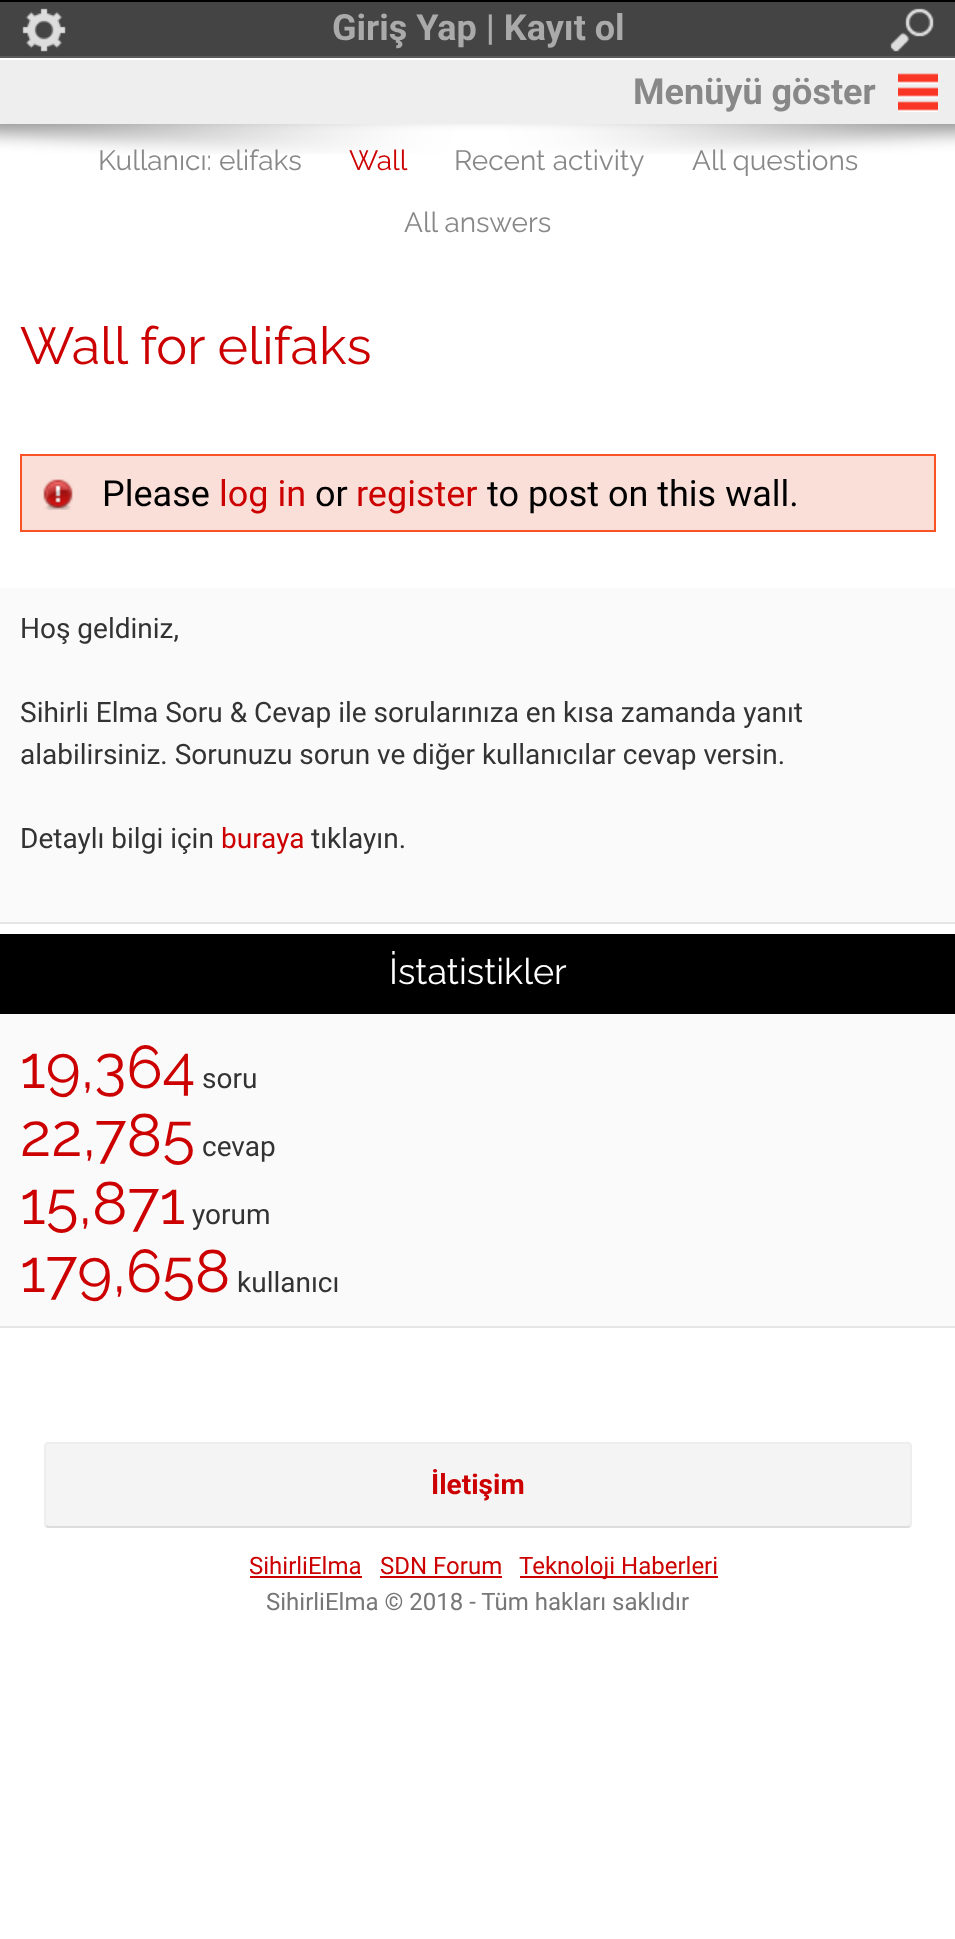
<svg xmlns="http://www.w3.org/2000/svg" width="955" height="1939">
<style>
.a{font:bold 36px Roboto;fill:#aaa}
.b{font:bold 36px Roboto;fill:#888}
.c{font:28px Raleway;fill:#888}
.d{font:28px Raleway;fill:#c00}
.e{font:52px Raleway;fill:#c00}
.f{font:36px Roboto;fill:#000}
.g{font:36px Roboto;fill:#c00}
.h{font:28px Roboto;fill:#333}
.i{font:28px Roboto;fill:#c00}
.j{font:36px Raleway;fill:#fff}
.k{font:60px Raleway;fill:#c00}
.l{font:bold 28px Roboto;fill:#c00}
.m{font:24px Roboto;fill:#c00}
.n{font:24px Roboto;fill:#777}
</style>
<defs>
<clipPath id="clip1"><path d="M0 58h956v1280H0z"/></clipPath>
</defs>
<rect width="100%" height="100%" fill="#fff"/>
<path fill="#5b5b5b" d="M0 56h955v2H0z"/>
<path fill="#444" d="M0 2h955v54H0z"/>
<path fill="#000" d="M0 0h955v2H0z"/>
<image href="1.png" x="22" y="8" width="44" height="44"/>
<image href="2.png" x="890" y="8" width="44" height="44"/>
<g clip-path="url(#clip1)">
<path fill="#00000026" filter="blur(5px)" d="M0 56h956v66H0z"/>
</g>
<path fill="#eee" d="M0 60h955v64H0z"/>
<image href="3.png" x="898" y="73" width="40" height="39"/>
<path fill="#fff" d="M0 58h955v2H0z"/>
<image href="4.png" x="0" y="124" width="955" height="30"/>
<path fill="#f9dfd8" d="M22 456h912v74H22z"/>
<image href="5.png" x="43" y="479" width="30" height="31"/>
<path fill="none" stroke="#f95225" stroke-width="2" d="M21 455h914v76H21z"/>
<path fill="#fafafa" d="M0 588h955v334H0z"/>
<path fill="#e5e5e5" d="M0 922h955v2H0z"/>
<path fill="#fafafa" d="M0 1014h955v312H0z"/>
<path fill="#e5e5e5" d="M0 1326h955v2H0z"/>
<path fill="#000" d="M0 934h955v80H0z"/>
<rect fill="#f4f4f4" x="44" y="1442" width="868" height="86" rx="4"/>
<path fill="none" stroke="#ddd" stroke-width="2" d="M910 1526l-2 1h-860l-2-1"/>
<path fill="none" stroke="#eee" stroke-width="2" d="M46 1526l-1-2v-78l1-2l2-1h860l2 1l1 2v78l-1 2"/>
<path fill="#c00" d="M250 1576h112v2H250z"/>
<path fill="#c00" d="M380 1576h122v2H380z"/>
<path fill="#c00" d="M520 1576h198v2H520z"/>
<text class="a" x="332" y="40">Giriş Yap | Kayıt ol</text>
<text class="b" x="633" y="104">Menüyü göster</text>
<text class="c" x="98" y="170">Kullanıcı: elifaks</text>
<text class="d" x="349" y="170">Wall</text>
<text class="c" x="454" y="170">Recent activity</text>
<text class="c" x="692" y="170">All questions</text>
<text class="c" x="404" y="232">All answers</text>
<text class="e" x="20" y="364">Wall for elifaks</text>
<text class="f" x="102" y="506">Please</text>
<text class="g" x="219" y="506">log in</text>
<text class="f" x="315" y="506">or</text>
<text class="g" x="356" y="506">register</text>
<text class="f" x="487" y="506">to post on this wall.</text>
<text class="h" x="20" y="638">Hoş geldiniz,</text>
<text class="h" x="20" y="722">Sihirli Elma Soru &amp; Cevap ile sorularınıza en kısa zamanda yanıt</text>
<text class="h" x="20" y="764">alabilirsiniz. Sorunuzu sorun ve diğer kullanıcılar cevap versin.</text>
<text class="h" x="20" y="848">Detaylı bilgi için</text>
<text class="i" x="221" y="848">buraya</text>
<text class="h" x="311" y="848">tıklayın.</text>
<text class="j" x="389" y="984">İstatistikler</text>
<text class="k" x="20" y="1088">19,364</text>
<text class="h" x="202" y="1088">soru</text>
<text class="k" x="20" y="1156">22,785</text>
<text class="h" x="202" y="1156">cevap</text>
<text class="k" x="20" y="1224">15,871</text>
<text class="h" x="192" y="1224">yorum</text>
<text class="k" x="20" y="1292">179,658</text>
<text class="h" x="237" y="1292">kullanıcı</text>
<text class="l" x="431" y="1494">İletişim</text>
<text class="m" x="249" y="1574">SihirliElma</text>
<text class="m" x="380" y="1574">SDN Forum</text>
<text class="m" x="519" y="1574">Teknoloji Haberleri</text>
<text class="n" x="266" y="1610">SihirliElma © 2018 - Tüm hakları saklıdır</text>
</svg>
